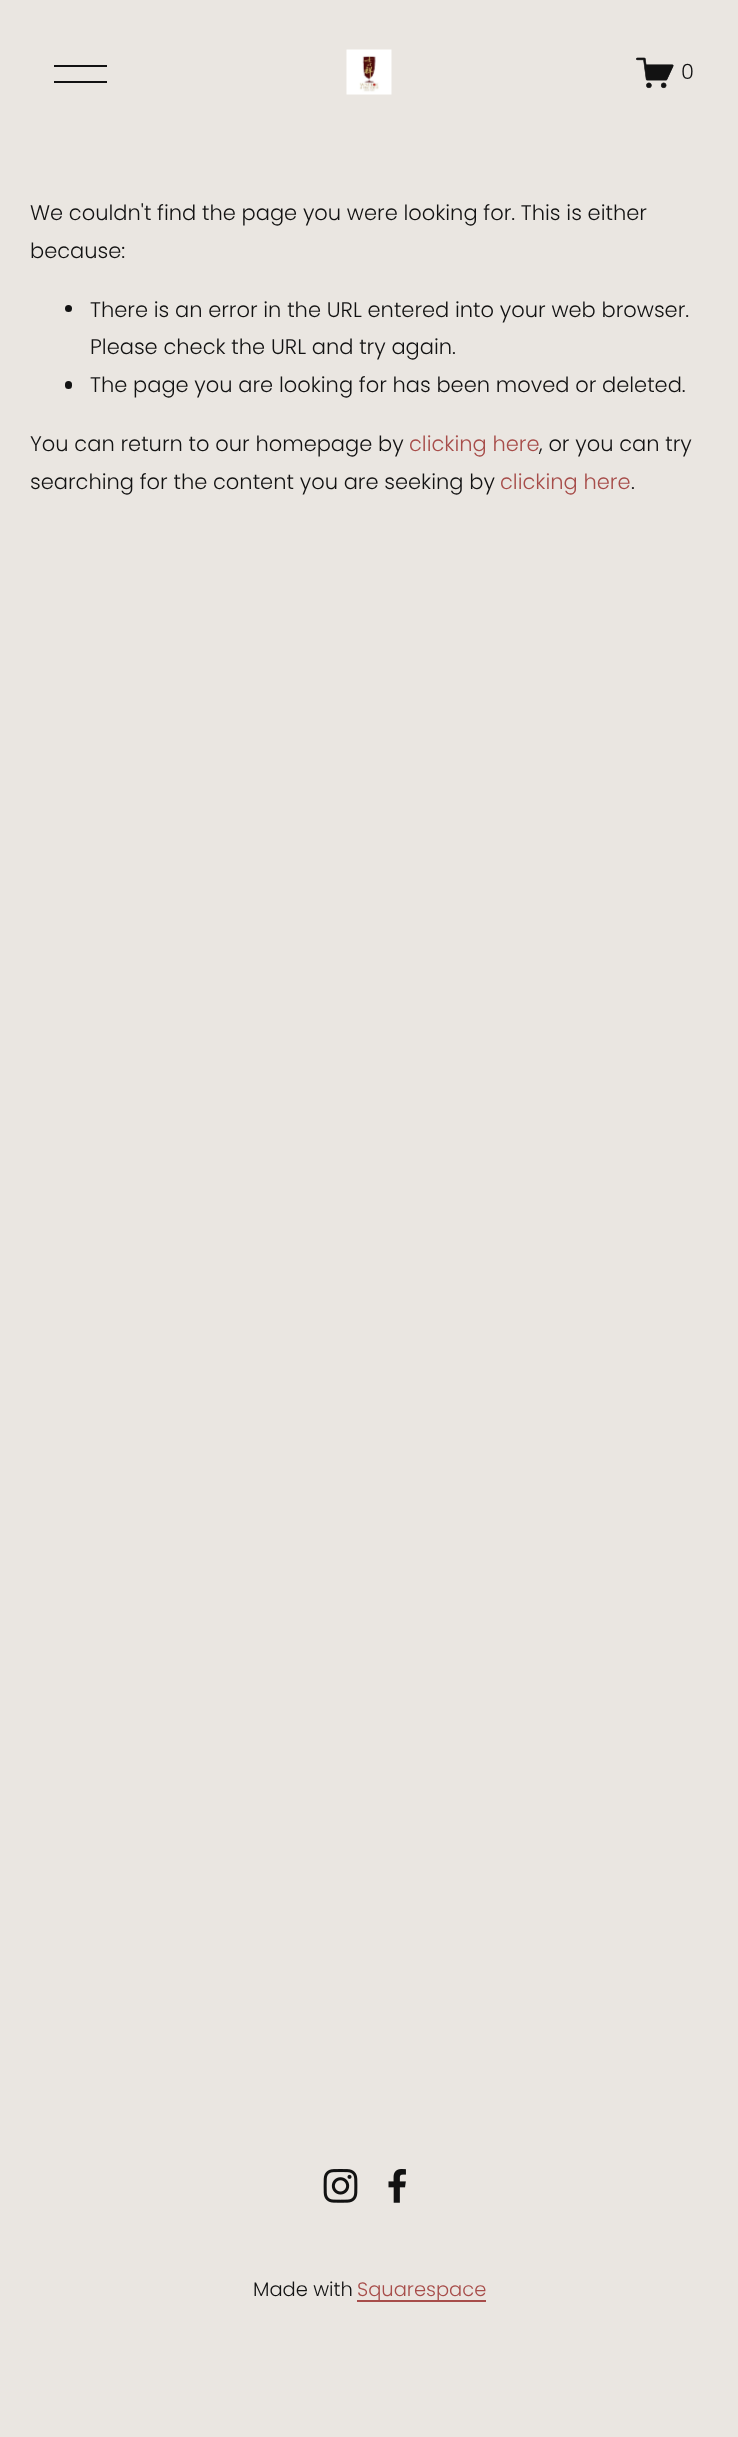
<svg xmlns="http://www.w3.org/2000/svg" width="738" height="2437">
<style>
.a{font:300 21px Poppins;fill:#121212}
.b{font:300 21px Poppins;fill:#a74d4a}
.c{font:300 19.5px Poppins;fill:#121212}
.d{font:300 19.5px Poppins;fill:#a74d4a}
</style>
<rect width="100%" height="100%" fill="#eae6e1"/>
<path fill="#121212" d="M54 65h53v2H54z"/>
<path fill="#121212" d="M54 81h53v2H54z"/>
<image href="1.png" x="346" y="49" width="46" height="46"/>
<image href="2.png" x="636" y="57" width="38" height="32"/>
<circle fill="#121212" cx="68.5" cy="308.5" r="3.5"/>
<rect fill="#121212" x="65" y="381" width="7" height="8" rx="3.5"/>
<image href="3.png" x="323" y="2169" width="35" height="34"/>
<image href="4.png" x="388" y="2169" width="18" height="34"/>
<path fill="#a74d4a" d="M357 2300h129v2H357z"/>
<text class="a" x="681" y="79">0</text>
<text class="a" x="30" y="220">We couldn't find the page you were looking for. This is either</text>
<text class="a" x="30" y="258">because:</text>
<text class="a" x="90" y="317">There is an error in the URL entered into your web browser.</text>
<text class="a" x="90" y="354">Please check the URL and try again.</text>
<text class="a" x="90" y="392">The page you are looking for has been moved or deleted.</text>
<text class="a" x="30" y="451">You can return to our homepage by</text>
<text class="b" x="409" y="451">clicking here</text>
<text class="a" x="539" y="451">, or you can try</text>
<text class="a" x="30" y="489">searching for the content you are seeking by</text>
<text class="b" x="500" y="489">clicking here</text>
<text class="a" x="631" y="489">.</text>
<text class="c" x="253" y="2296">Made with</text>
<text class="d" x="357" y="2296">Squarespace</text>
</svg>
